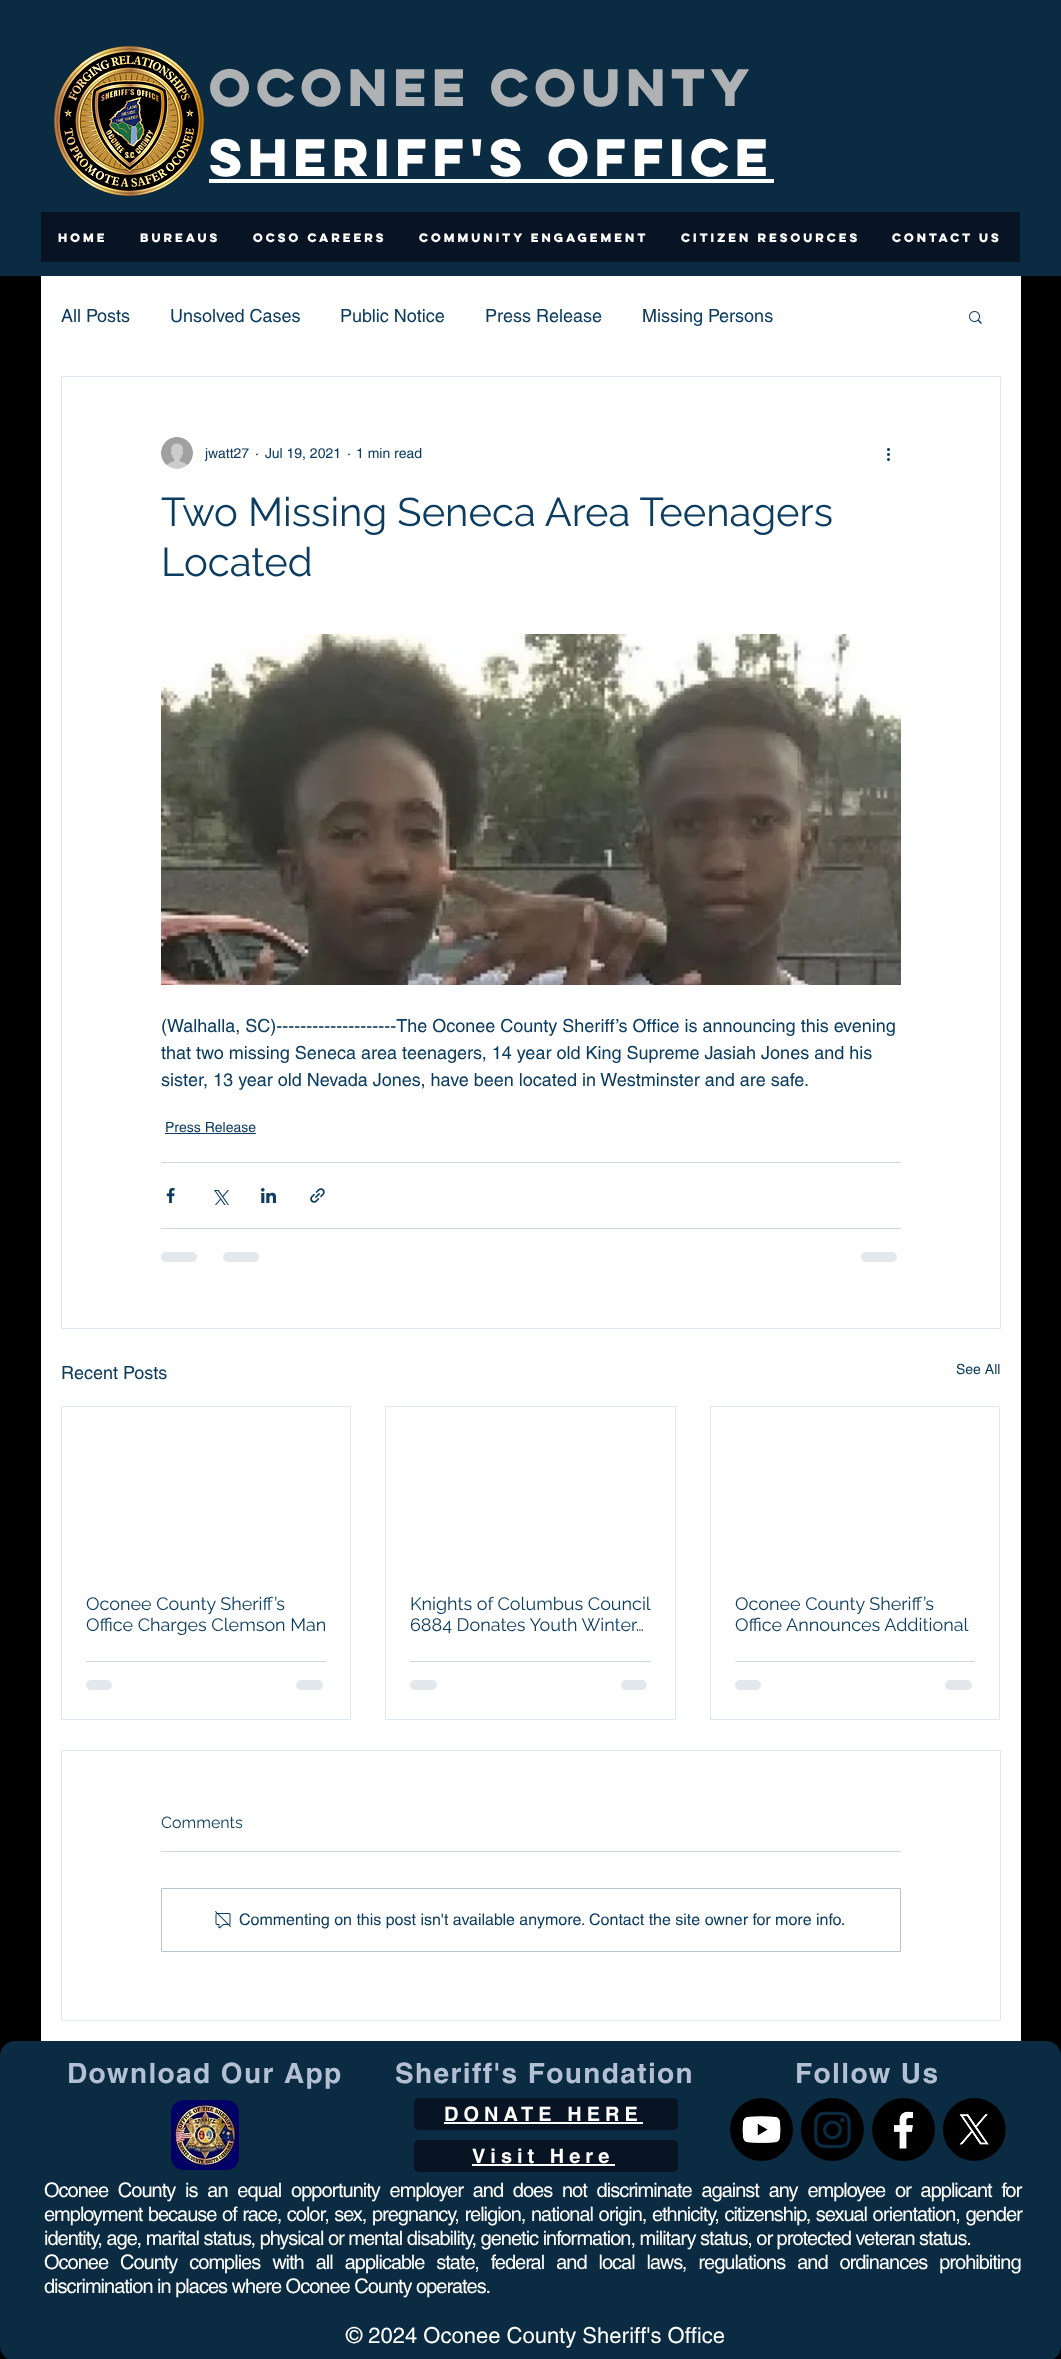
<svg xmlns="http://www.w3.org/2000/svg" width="1061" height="2359">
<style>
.a{font:bold 47px 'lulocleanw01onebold';letter-spacing:-4.75px;fill:#aeb2b5}
.b{font:bold 47px 'lulocleanw01onebold';letter-spacing:-4.75px;fill:#fff}
.c{font:bold 11px 'lulocleanw01onebold';letter-spacing:0.55px;fill:#fff}
.d{font:18px helvetica;fill:#0c3c60}
.e{font:14px helvetica;fill:#0c3c60}
.f{font:40px Raleway;fill:#0c3c60}
.g{font:18px Raleway;fill:#0c3c60}
.h{font:16px Raleway;fill:#0c3c60}
.i{font:16px helvetica;fill:#0c3c60}
.j{font:bold 28px helvetica;letter-spacing:1.4px;fill:#b3c0d3}
.k{font:bold 20px helvetica;letter-spacing:5px;fill:#fff}
.l{font:20px helvetica;letter-spacing:-1px;fill:#fff}
.m{font:22px helvetica;fill:#fff}
</style>
<rect width="100%" height="100%" fill="#000"/>
<path fill="#0a2b42" d="M0 0h1061v276H0z"/>
<image href="1.png" x="54" y="46" width="150" height="150"/>
<path fill="#fff" d="M209 179h565v4H209z"/>
<path fill="#081423" d="M41 212h979v50H41z"/>
<path fill="#fff" d="M41 276h980v1765H41z"/>
<image href="2.png" x="969" y="311" width="13" height="13"/>
<path fill="none" stroke="#dde8f0" d="M61.5 376.5h939v952H61.5z"/>
<image href="3.png" x="161" y="437" width="32" height="32"/>
<image href="4.png" x="887" y="448" width="3" height="13"/>
<image href="5.png" x="161" y="634" width="740" height="351"/>
<path fill="#0c3c60" d="M165 1133h91v1H165z"/>
<path fill="#ced8df" d="M161 1162h740v1H161z"/>
<image href="6.png" x="166" y="1188" width="9" height="15"/>
<image href="7.png" x="214" y="1190" width="15" height="15"/>
<image href="8.png" x="261" y="1188" width="15" height="15"/>
<image href="9.png" x="310" y="1188" width="15" height="15"/>
<path fill="#ced8df" d="M161 1228h740v1H161z"/>
<rect fill="#e2e8ec" x="161" y="1252" width="36" height="10" rx="5"/>
<rect fill="#e2e8ec" x="223" y="1252" width="36" height="10" rx="5"/>
<rect fill="#e2e8ec" x="861" y="1252" width="36" height="10" rx="5"/>
<path fill="none" stroke="#dde8f0" d="M61.5 1406.5h289v313H61.5z"/>
<path fill="#ced8df" d="M86 1661h240v1H86z"/>
<rect fill="#e2e8ec" x="86" y="1680" width="26" height="10" rx="5"/>
<rect fill="#e2e8ec" x="296" y="1680" width="27" height="10" rx="5"/>
<path fill="none" stroke="#dde8f0" d="M385.5 1406.5h290v313H385.5z"/>
<path fill="#ced8df" d="M410 1661h241v1H410z"/>
<rect fill="#e2e8ec" x="410" y="1680" width="27" height="10" rx="5"/>
<rect fill="#e2e8ec" x="621" y="1680" width="26" height="10" rx="5"/>
<path fill="none" stroke="#dde8f0" d="M710.5 1406.5h289v313H710.5z"/>
<path fill="#ced8df" d="M735 1661h240v1H735z"/>
<rect fill="#e2e8ec" x="735" y="1680" width="26" height="10" rx="5"/>
<rect fill="#e2e8ec" x="945" y="1680" width="27" height="10" rx="5"/>
<path fill="none" stroke="#dde8f0" d="M61.5 1750.5h939v270H61.5z"/>
<path fill="#ced8df" d="M161 1851h740v1H161z"/>
<path fill="none" stroke="#b6c5cf" d="M161.5 1888.5h739v63H161.5z"/>
<image href="10.png" x="215" y="1911" width="16" height="18"/>
<rect fill="#0a2b42" y="2041" width="1061" height="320" rx="15"/>
<image href="11.png" x="171" y="2100" width="68" height="70"/>
<rect fill="#081423" x="414" y="2098" width="264" height="32" rx="5"/>
<path fill="#fff" d="M444 2122h199v2H444z"/>
<image href="12.png" x="730" y="2098" width="63" height="63"/>
<image href="13.png" x="801" y="2098" width="63" height="63"/>
<image href="14.png" x="872" y="2098" width="63" height="63"/>
<image href="15.png" x="943" y="2098" width="63" height="63"/>
<rect fill="#081423" x="414" y="2140" width="264" height="32" rx="5"/>
<path fill="#fff" d="M472 2164h143v2H472z"/>
<text class="a" x="209" y="106">OCONEE COUNTy</text>
<text class="b" x="209" y="176">Sheriff's office</text>
<text class="c" x="58" y="242">Home</text>
<text class="c" x="140" y="242">Bureaus</text>
<text class="c" x="253" y="242">OCSO Careers</text>
<text class="c" x="419" y="242">Community Engagement</text>
<text class="c" x="681" y="242">Citizen Resources</text>
<text class="c" x="892" y="242">Contact Us</text>
<text class="d" x="61" y="322">All Posts</text>
<text class="d" x="170" y="322">Unsolved Cases</text>
<text class="d" x="340" y="322">Public Notice</text>
<text class="d" x="485" y="322">Press Release</text>
<text class="d" x="642" y="322">Missing Persons</text>
<text class="e" x="205" y="458">jwatt27</text>
<text class="e" x="255" y="458">·</text>
<text class="e" x="265" y="458">Jul 19, 2021</text>
<text class="e" x="347" y="458">·</text>
<text class="e" x="356" y="458">1 min read</text>
<text class="f" x="161" y="526">Two Missing Seneca Area Teenagers</text>
<text class="f" x="161" y="576">Located</text>
<text class="d" x="161" y="1032">(Walhalla, SC)--------------------The Oconee County Sheriff’s Office is announcing this evening</text>
<text class="d" x="161" y="1059">that two missing Seneca area teenagers, 14 year old King Supreme Jasiah Jones and his</text>
<text class="d" x="161" y="1086">sister, 13 year old Nevada Jones, have been located in Westminster and are safe.</text>
<text class="e" x="165" y="1132">Press Release</text>
<text class="d" x="61" y="1379">Recent Posts</text>
<text class="e" x="956" y="1374">See All</text>
<text class="g" x="86" y="1610">Oconee County Sheriff’s</text>
<text class="g" x="86" y="1631">Office Charges Clemson Man</text>
<text class="g" x="410" y="1610">Knights of Columbus Council</text>
<text class="g" x="410" y="1631">6884 Donates Youth Winter…</text>
<text class="g" x="735" y="1610">Oconee County Sheriff’s</text>
<text class="g" x="735" y="1631">Office Announces Additional</text>
<text class="h" x="161" y="1828">Comments</text>
<text class="i" x="239" y="1925">Commenting on this post isn't available anymore. Contact the site owner for more info.</text>
<text class="j" x="67" y="2083">Download Our App</text>
<text class="j" x="395" y="2083">Sheriff's Foundation</text>
<text class="j" x="795" y="2083">Follow Us</text>
<text class="k" x="444" y="2121">DONATE HERE</text>
<text class="k" x="472" y="2163">Visit Here</text>
<text class="l" x="44" y="2197" word-spacing="5.25">Oconee County is an equal opportunity employer and does not discriminate against any employee or applicant for</text>
<text class="l" x="44" y="2221" word-spacing="1">employment because of race, color, sex, pregnancy, religion, national origin, ethnicity, citizenship, sexual orientation, gender</text>
<text class="l" x="44" y="2245">identity, age, marital status, physical or mental disability, genetic information, military status, or protected veteran status.</text>
<text class="l" x="44" y="2269" word-spacing="7.4">Oconee County complies with all applicable state, federal and local laws, regulations and ordinances prohibiting</text>
<text class="l" x="44" y="2293">discrimination in places where Oconee County operates.</text>
<text class="m" x="346" y="2343">© 2024 Oconee County Sheriff's Office</text>
</svg>
